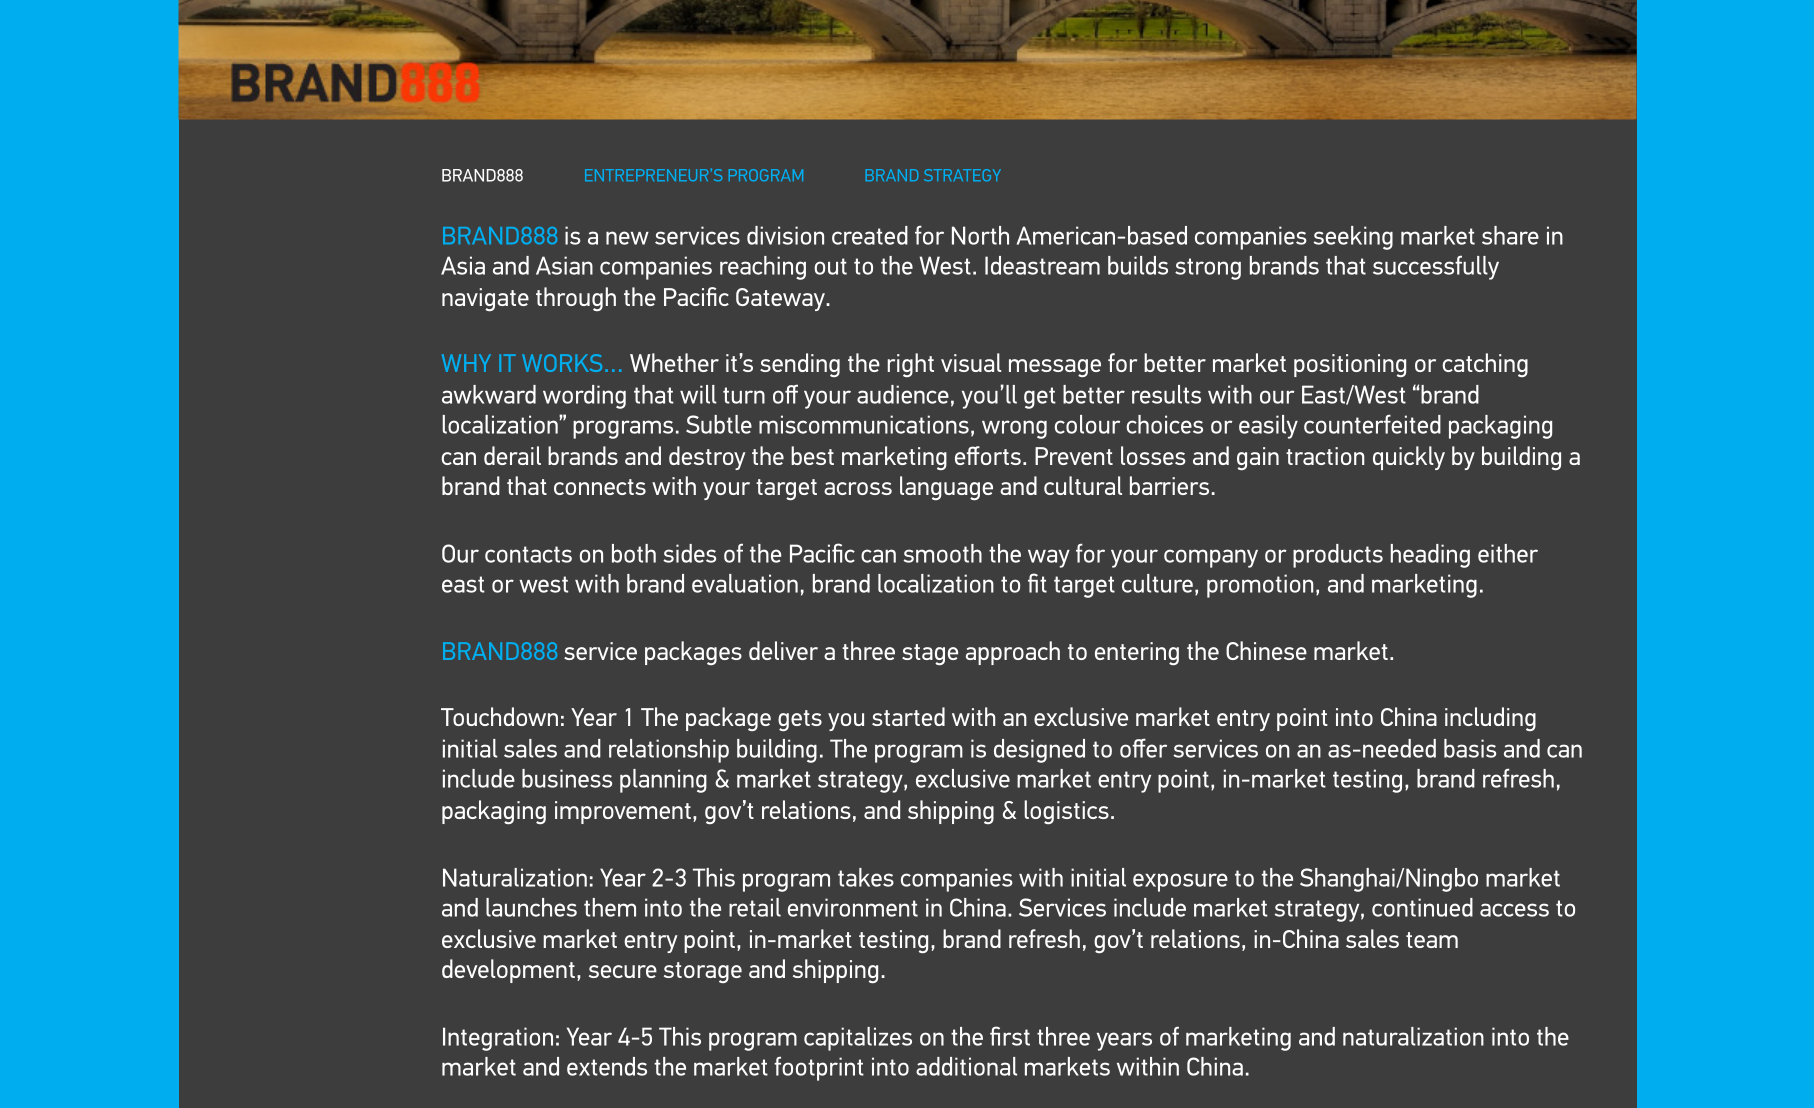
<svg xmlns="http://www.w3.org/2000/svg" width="1814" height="1108">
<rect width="100%" height="100%" fill="#00adee"/>
<path fill="#3d3d3d" d="M179 0h1458v1108H179z"/>
<image href="1.png" x="178" y="0" width="1459" height="120"/>
<image href="2.png" x="442" y="168" width="81" height="14"/>
<image href="3.png" x="584" y="168" width="220" height="14"/>
<image href="4.png" x="865" y="168" width="137" height="14"/>
<image href="5.png" x="442" y="226" width="116" height="19"/>
<image href="6.png" x="565" y="225" width="998" height="25"/>
<image href="7.png" x="441" y="255" width="1058" height="25"/>
<image href="8.png" x="442" y="287" width="388" height="25"/>
<image href="9.png" x="441" y="354" width="181" height="19"/>
<image href="10.png" x="630" y="353" width="898" height="25"/>
<image href="11.png" x="441" y="384" width="1038" height="25"/>
<image href="12.png" x="442" y="414" width="1111" height="25"/>
<image href="13.png" x="441" y="446" width="1139" height="25"/>
<image href="14.png" x="442" y="476" width="773" height="25"/>
<image href="15.png" x="442" y="543" width="1096" height="25"/>
<image href="16.png" x="442" y="573" width="1041" height="25"/>
<image href="17.png" x="442" y="642" width="116" height="19"/>
<image href="18.png" x="564" y="641" width="830" height="25"/>
<image href="19.png" x="441" y="707" width="1095" height="25"/>
<image href="20.png" x="442" y="738" width="1140" height="25"/>
<image href="21.png" x="442" y="768" width="1118" height="25"/>
<image href="22.png" x="442" y="800" width="672" height="25"/>
<image href="23.png" x="442" y="867" width="1118" height="25"/>
<image href="24.png" x="441" y="897" width="1135" height="25"/>
<image href="25.png" x="442" y="929" width="1016" height="25"/>
<image href="26.png" x="442" y="959" width="443" height="25"/>
<image href="27.png" x="442" y="1026" width="1127" height="25"/>
<image href="28.png" x="442" y="1056" width="807" height="25"/>
</svg>
